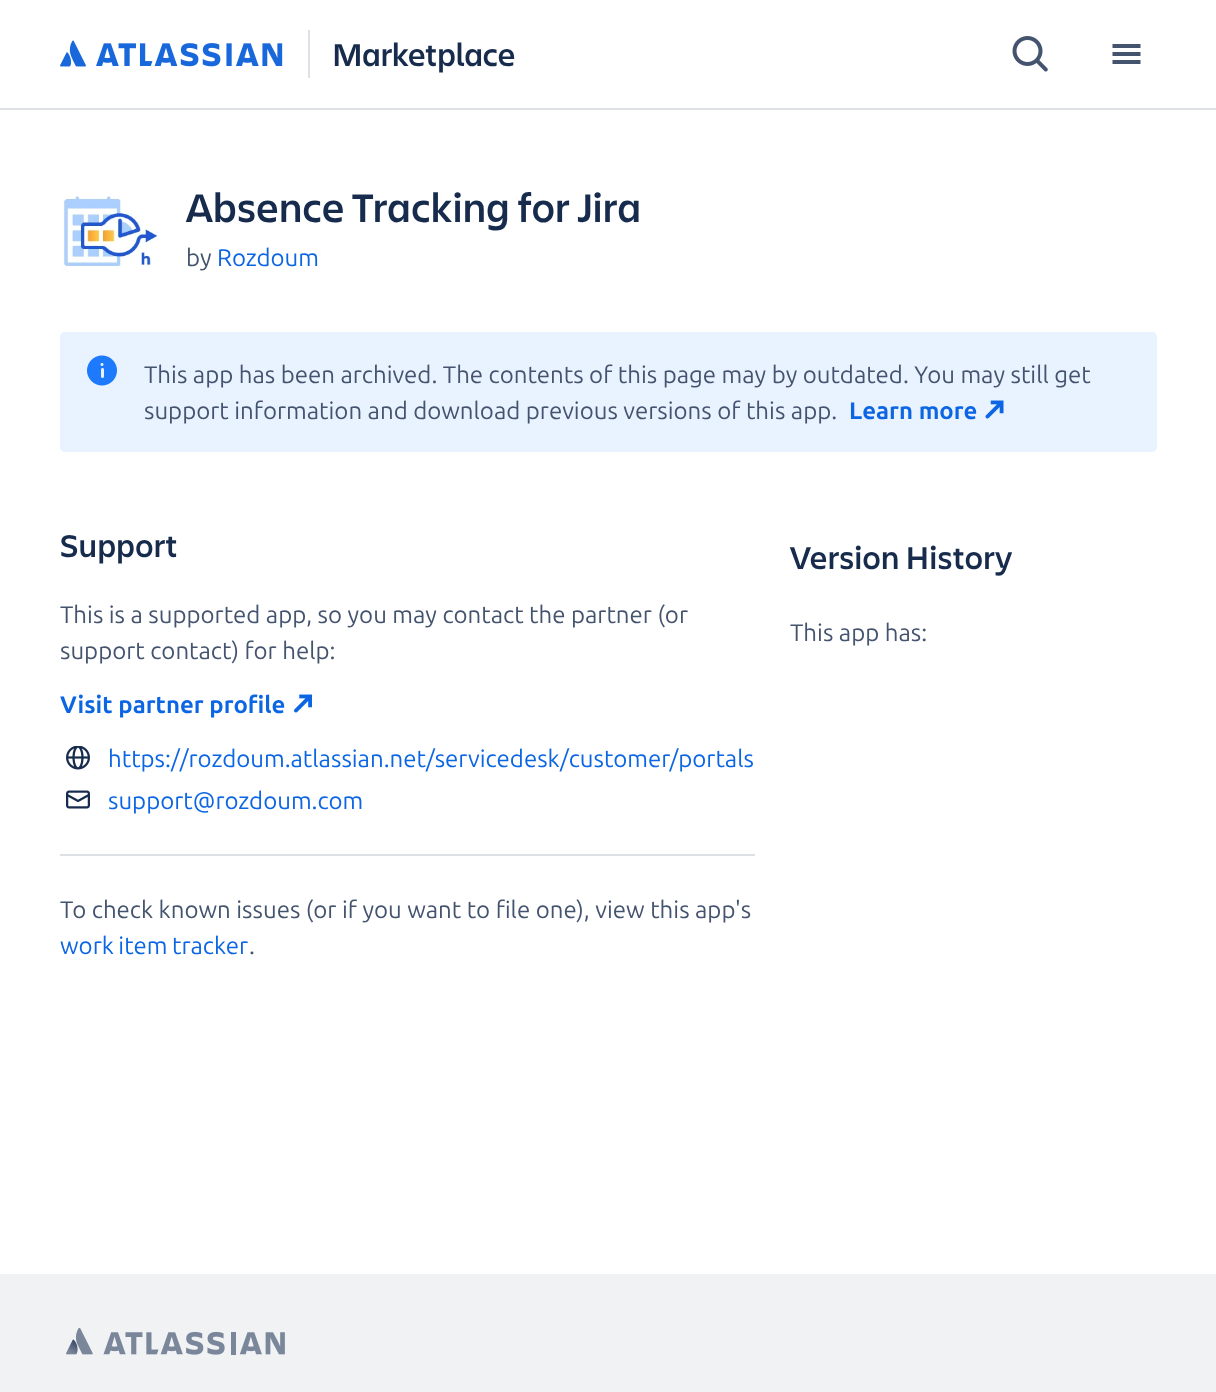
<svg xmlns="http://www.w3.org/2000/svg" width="1216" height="1392">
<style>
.a{font:600 33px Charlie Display;fill:#172b4d}
.b{font:600 42px Charlie Display;letter-spacing:0.45px;fill:#172b4d}
.c{font:24px Ubuntu;fill:#44546f}
.d{font:24px Ubuntu;fill:#0c66e4}
.e{font:bold 24px Ubuntu;fill:#0c66e4}
.f{font:600 33px Charlie Display;letter-spacing:0.45px;fill:#172b4d}
</style>
<rect width="100%" height="100%" fill="#fff"/>
<path fill="#dde0e5" d="M0 108h1216v2H0z"/>
<image href="1.png" x="60" y="40" width="223" height="27"/>
<path fill="#dde0e5" d="M308 30h2v48H308z"/>
<image href="2.png" x="1012" y="36" width="36" height="36"/>
<image href="3.png" x="1112" y="44" width="29" height="20"/>
<image href="4.png" x="63" y="196" width="96" height="73"/>
<rect fill="#e9f2ff" x="60" y="332" width="1097" height="120" rx="5"/>
<image href="5.png" x="87" y="355" width="30" height="31"/>
<image href="6.png" x="985" y="400" width="19" height="19"/>
<image href="7.png" x="294" y="694" width="18" height="19"/>
<image href="8.png" x="66" y="746" width="24" height="24"/>
<image href="9.png" x="66" y="790" width="24" height="19"/>
<path fill="#dde0e5" d="M60 854h695v2H60z"/>
<path fill="#f1f2f4" d="M0 1274h1216v118H0z"/>
<image href="10.png" x="66" y="1328" width="219" height="27"/>
<text class="a" x="332" y="66">Marketplace</text>
<text class="b" x="186" y="222">Absence Tracking for Jira</text>
<text class="c" x="186" y="266">by</text>
<text class="d" x="217" y="266">Rozdoum</text>
<text class="c" x="144" y="383">This app has been archived. The contents of this page may by outdated. You may still get</text>
<text class="c" x="144" y="419">support information and download previous versions of this app.</text>
<text class="e" x="849" y="419">Learn more</text>
<text class="f" x="60" y="557">Support</text>
<text class="c" x="60" y="623">This is a supported app, so you may contact the partner (or</text>
<text class="c" x="60" y="659">support contact) for help:</text>
<text class="e" x="60" y="713">Visit partner profile</text>
<text class="d" x="108" y="767">https://rozdoum.atlassian.net/servicedesk/customer/portals</text>
<text class="d" x="108" y="809">support@rozdoum.com</text>
<text class="c" x="60" y="918">To check known issues (or if you want to file one), view this app's</text>
<text class="d" x="60" y="954" word-spacing="-1">work item tracker</text>
<text class="c" x="249" y="954">.</text>
<text class="f" x="790" y="569">Version History</text>
<text class="c" x="790" y="641">This app has:</text>
</svg>
